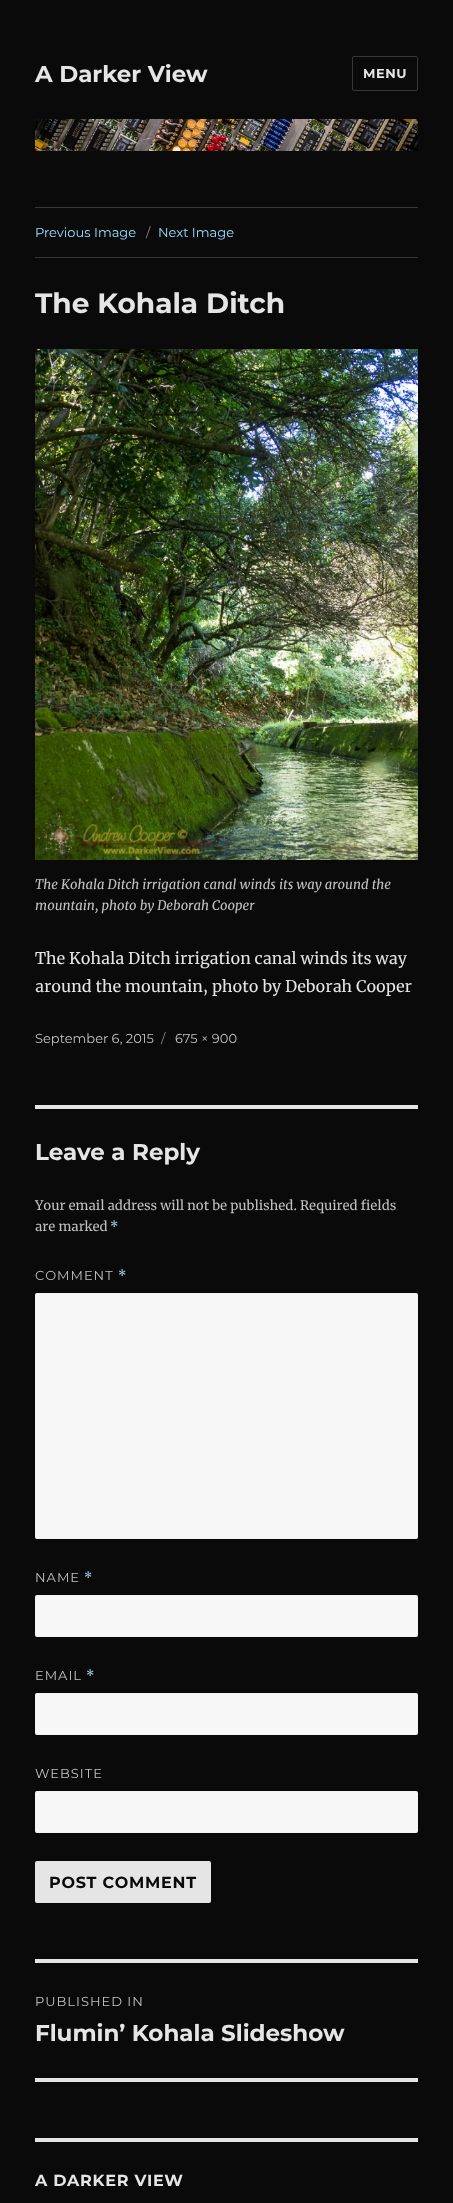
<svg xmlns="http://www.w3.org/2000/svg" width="453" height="2203">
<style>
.a{font:100 23px Montserrat;fill:#e5e5e5}
.b{font:100 13px Montserrat;letter-spacing:0.5px;fill:#e5e5e5}
.c{font:100 13px 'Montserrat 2';fill:#9adffd}
.d{font:100 13px 'Montserrat 2';fill:#8a8a8a}
.e{font:100 28px Montserrat;fill:#e5e5e5}
.f{font:italic 13px Merriweather;fill:#c1c1c1}
.g{font:16px Merriweather;fill:#e5e5e5}
.h{font:100 13px 'Montserrat 2';fill:#c1c1c1}
.i{font:13px Merriweather;fill:#c1c1c1}
.j{font:13px Merriweather;fill:#9adffd}
.k{font:100 13px 'Montserrat 2';letter-spacing:1px;fill:#c1c1c1}
.l{font:13px Merriweather;letter-spacing:1px;fill:#9adffd}
.m{font:100 16px Montserrat;letter-spacing:0.75px;fill:#0a0a0a}
.n{font:100 16px Montserrat;letter-spacing:0.75px;fill:#e5e5e5}
</style>
<rect width="100%" height="100%" fill="#0a0a0a"/>
<rect fill="none" stroke="#363636" x="352.5" y="56.5" width="65" height="34" rx="1.5"/>
<image href="1.png" x="35" y="119" width="383" height="32"/>
<path fill="#363636" d="M35 207h383v1H35z"/>
<path fill="#363636" d="M35 257h383v1H35z"/>
<image href="2.png" x="35" y="349" width="383" height="511"/>
<path fill="#e5e5e5" d="M35 1105h383v4H35z"/>
<rect fill="#f7f7f7" x="35" y="1293" width="383" height="246" rx="2"/>
<rect fill="none" stroke="#e5e5e533" x="35.5" y="1293.5" width="382" height="245" rx="1.5"/>
<rect fill="#f7f7f7" x="35" y="1595" width="383" height="42" rx="2"/>
<rect fill="none" stroke="#e5e5e533" x="35.5" y="1595.5" width="382" height="41" rx="1.5"/>
<rect fill="#f7f7f7" x="35" y="1693" width="383" height="42" rx="2"/>
<rect fill="none" stroke="#e5e5e533" x="35.5" y="1693.5" width="382" height="41" rx="1.5"/>
<rect fill="#f7f7f7" x="35" y="1791" width="383" height="42" rx="2"/>
<rect fill="none" stroke="#e5e5e533" x="35.5" y="1791.5" width="382" height="41" rx="1.5"/>
<rect fill="#e5e5e5" x="35" y="1861" width="176" height="42" rx="2"/>
<path fill="#e5e5e5" d="M35 1959h383v4H35z"/>
<path fill="#e5e5e5" d="M35 2078h383v4H35z"/>
<path fill="#e5e5e5" d="M35 2138h383v4H35z"/>
<text class="a" x="35" y="82">A Darker View</text>
<text class="b" x="363" y="78">MENU</text>
<text class="c" x="35" y="237">Previous Image</text>
<text class="d" x="146" y="237">/</text>
<text class="c" x="158" y="237">Next Image</text>
<text class="e" x="35" y="313">The Kohala Ditch</text>
<text class="f" x="35" y="889">The Kohala Ditch irrigation canal winds its way around the</text>
<text class="f" x="35" y="910">mountain, photo by Deborah Cooper</text>
<text class="g" x="35" y="964">The Kohala Ditch irrigation canal winds its way</text>
<text class="g" x="35" y="992">around the mountain, photo by Deborah Cooper</text>
<text class="h" x="35" y="1043">September 6, 2015</text>
<text class="d" x="161" y="1043">/</text>
<text class="h" x="175" y="1043">675 × 900</text>
<text class="a" x="35" y="1160">Leave a Reply</text>
<text class="i" x="35" y="1210">Your email address will not be published. Required fields</text>
<text class="i" x="35" y="1231">are marked</text>
<text class="j" x="110" y="1231">*</text>
<text class="k" x="35" y="1280">COMMENT</text>
<text class="l" x="118" y="1280">*</text>
<text class="k" x="35" y="1582">NAME</text>
<text class="l" x="84" y="1582">*</text>
<text class="k" x="35" y="1680">EMAIL</text>
<text class="l" x="86" y="1680">*</text>
<text class="k" x="35" y="1778">WEBSITE</text>
<text class="m" x="49" y="1888">POST COMMENT</text>
<text class="k" x="35" y="2006">PUBLISHED IN</text>
<text class="a" x="35" y="2041">Flumin’ Kohala Slideshow</text>
<text class="n" x="35" y="2186">A DARKER VIEW</text>
</svg>
